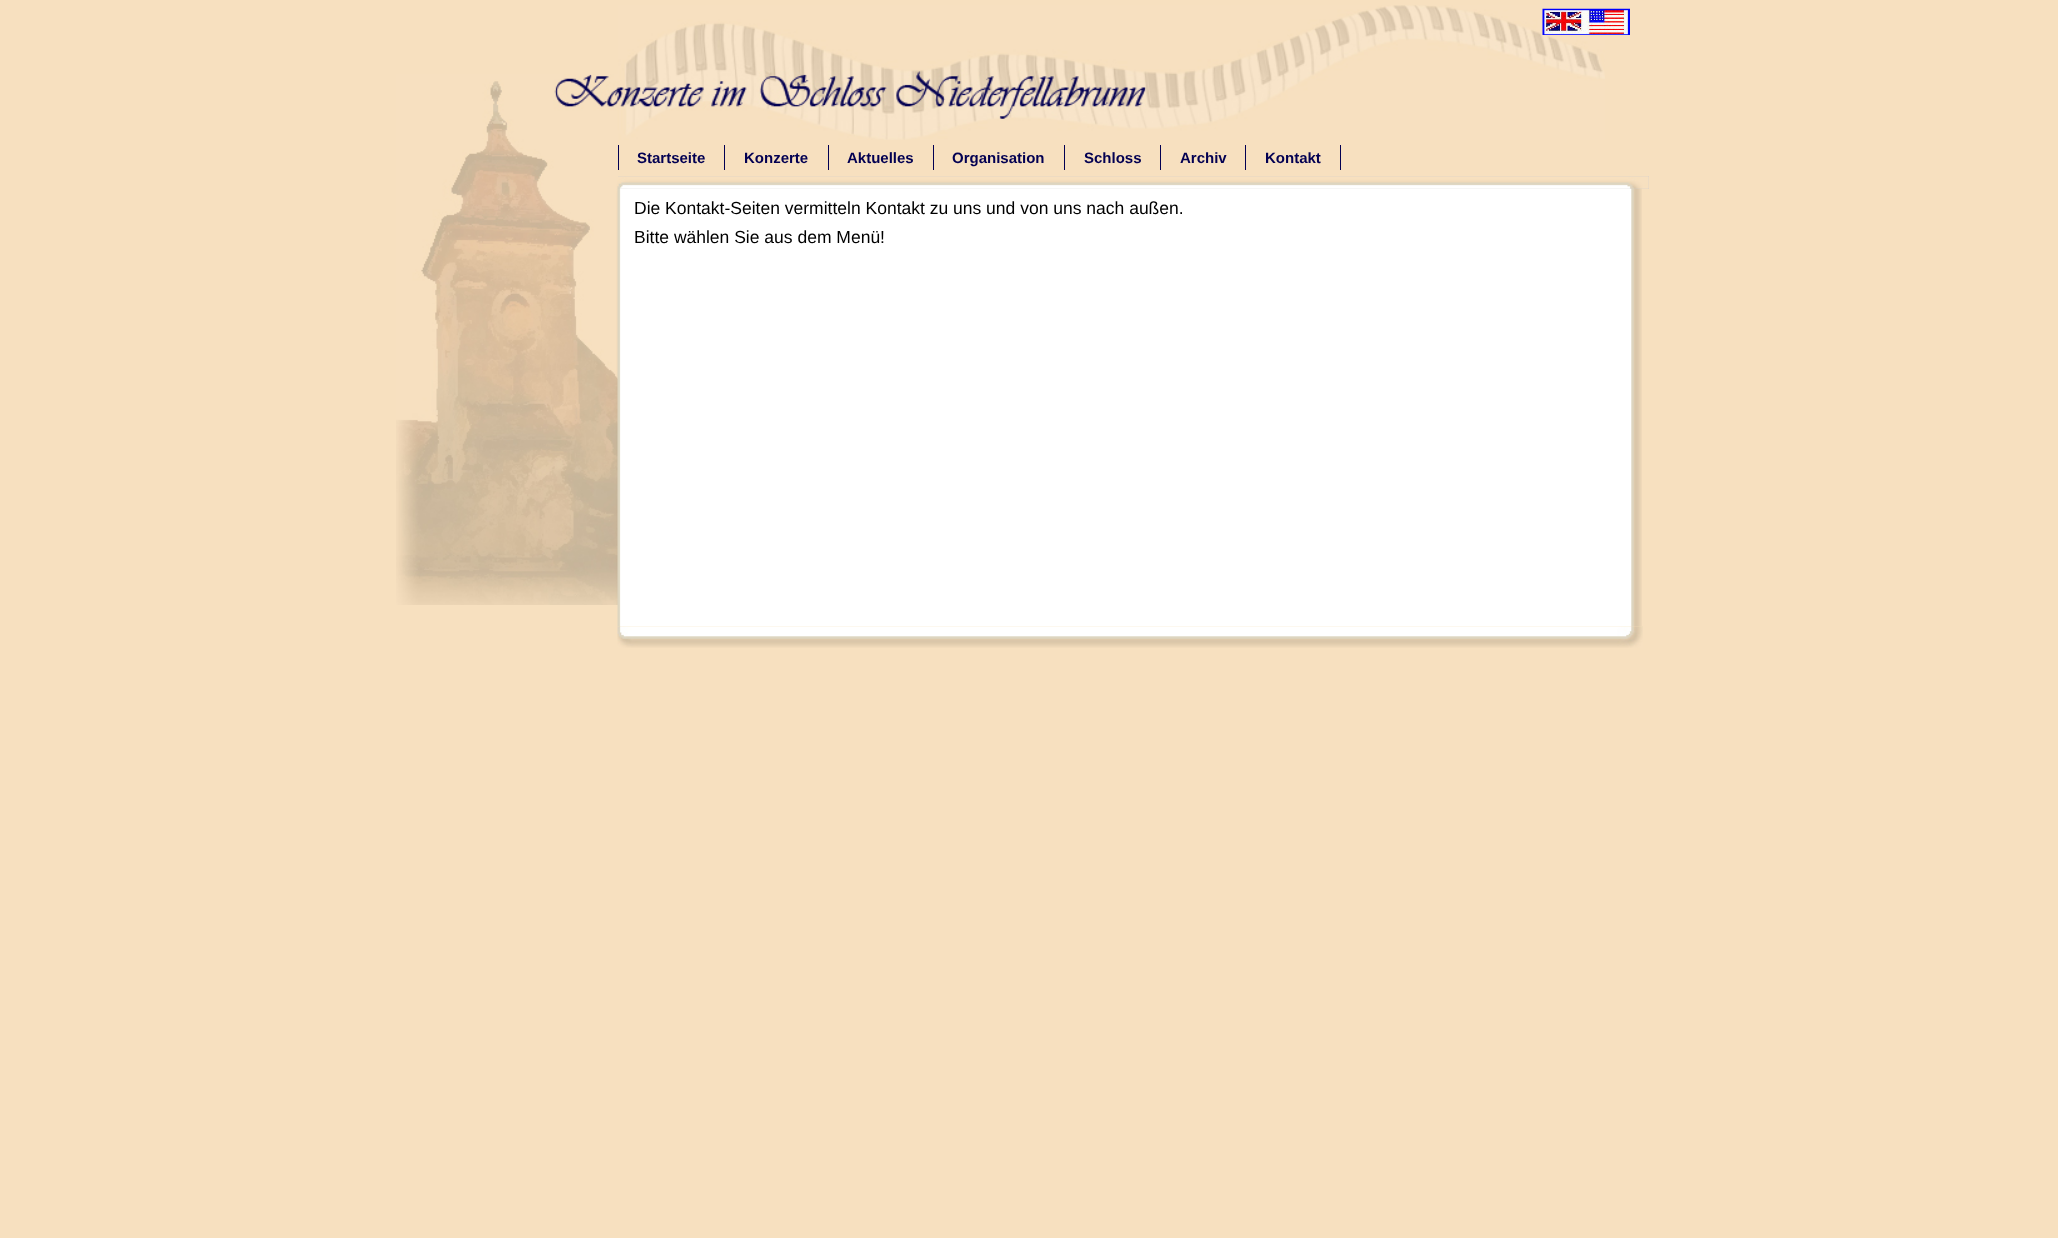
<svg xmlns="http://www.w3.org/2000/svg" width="2058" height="1238">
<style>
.a{font:bold 15px Liberation Sans;fill:#030052}
.b{font:17.5px Liberation Sans;fill:#000}
</style>
<rect width="100%" height="100%" fill="#f7e0bf"/>
<image href="1.png" x="396" y="74" width="223" height="531"/>
<path fill="#f7e0bf" d="M618 88h1v15H618z"/>
<image href="2.png" x="617" y="5" width="988" height="135"/>
<image href="3.png" x="1542" y="8" width="88" height="27"/>
<path fill="#030052" d="M724 145h1v25H724z"/>
<path fill="#030052" d="M618 145h1v25H618z"/>
<path fill="#030052" d="M828 145h1v25H828z"/>
<path fill="#030052" d="M933 145h1v25H933z"/>
<path fill="#030052" d="M1064 145h1v25H1064z"/>
<path fill="#030052" d="M1160 145h1v25H1160z"/>
<path fill="#030052" d="M1245 145h1v25H1245z"/>
<path fill="#030052" d="M1340 145h1v25H1340z"/>
<path fill="#ccc" d="M618 176h1031v13H618z"/>
<image href="4.png" x="617" y="176" width="1032" height="13"/>
<image href="5.png" x="617" y="188" width="1025" height="439"/>
<path fill="#f7e0bf" d="M618 626h1023v1H618z"/>
<image href="6.png" x="617" y="626" width="1026" height="22"/>
<text class="a" x="637" y="163">Startseite</text>
<text class="a" x="744" y="163">Konzerte</text>
<text class="a" x="847" y="163">Aktuelles</text>
<text class="a" x="952" y="163">Organisation</text>
<text class="a" x="1084" y="163">Schloss</text>
<text class="a" x="1180" y="163">Archiv</text>
<text class="a" x="1265" y="163">Kontakt</text>
<text class="b" x="634" y="214">Die Kontakt-Seiten vermitteln Kontakt zu uns und von uns nach außen.</text>
<text class="b" x="634" y="243">Bitte wählen Sie aus dem Menü!</text>
</svg>
